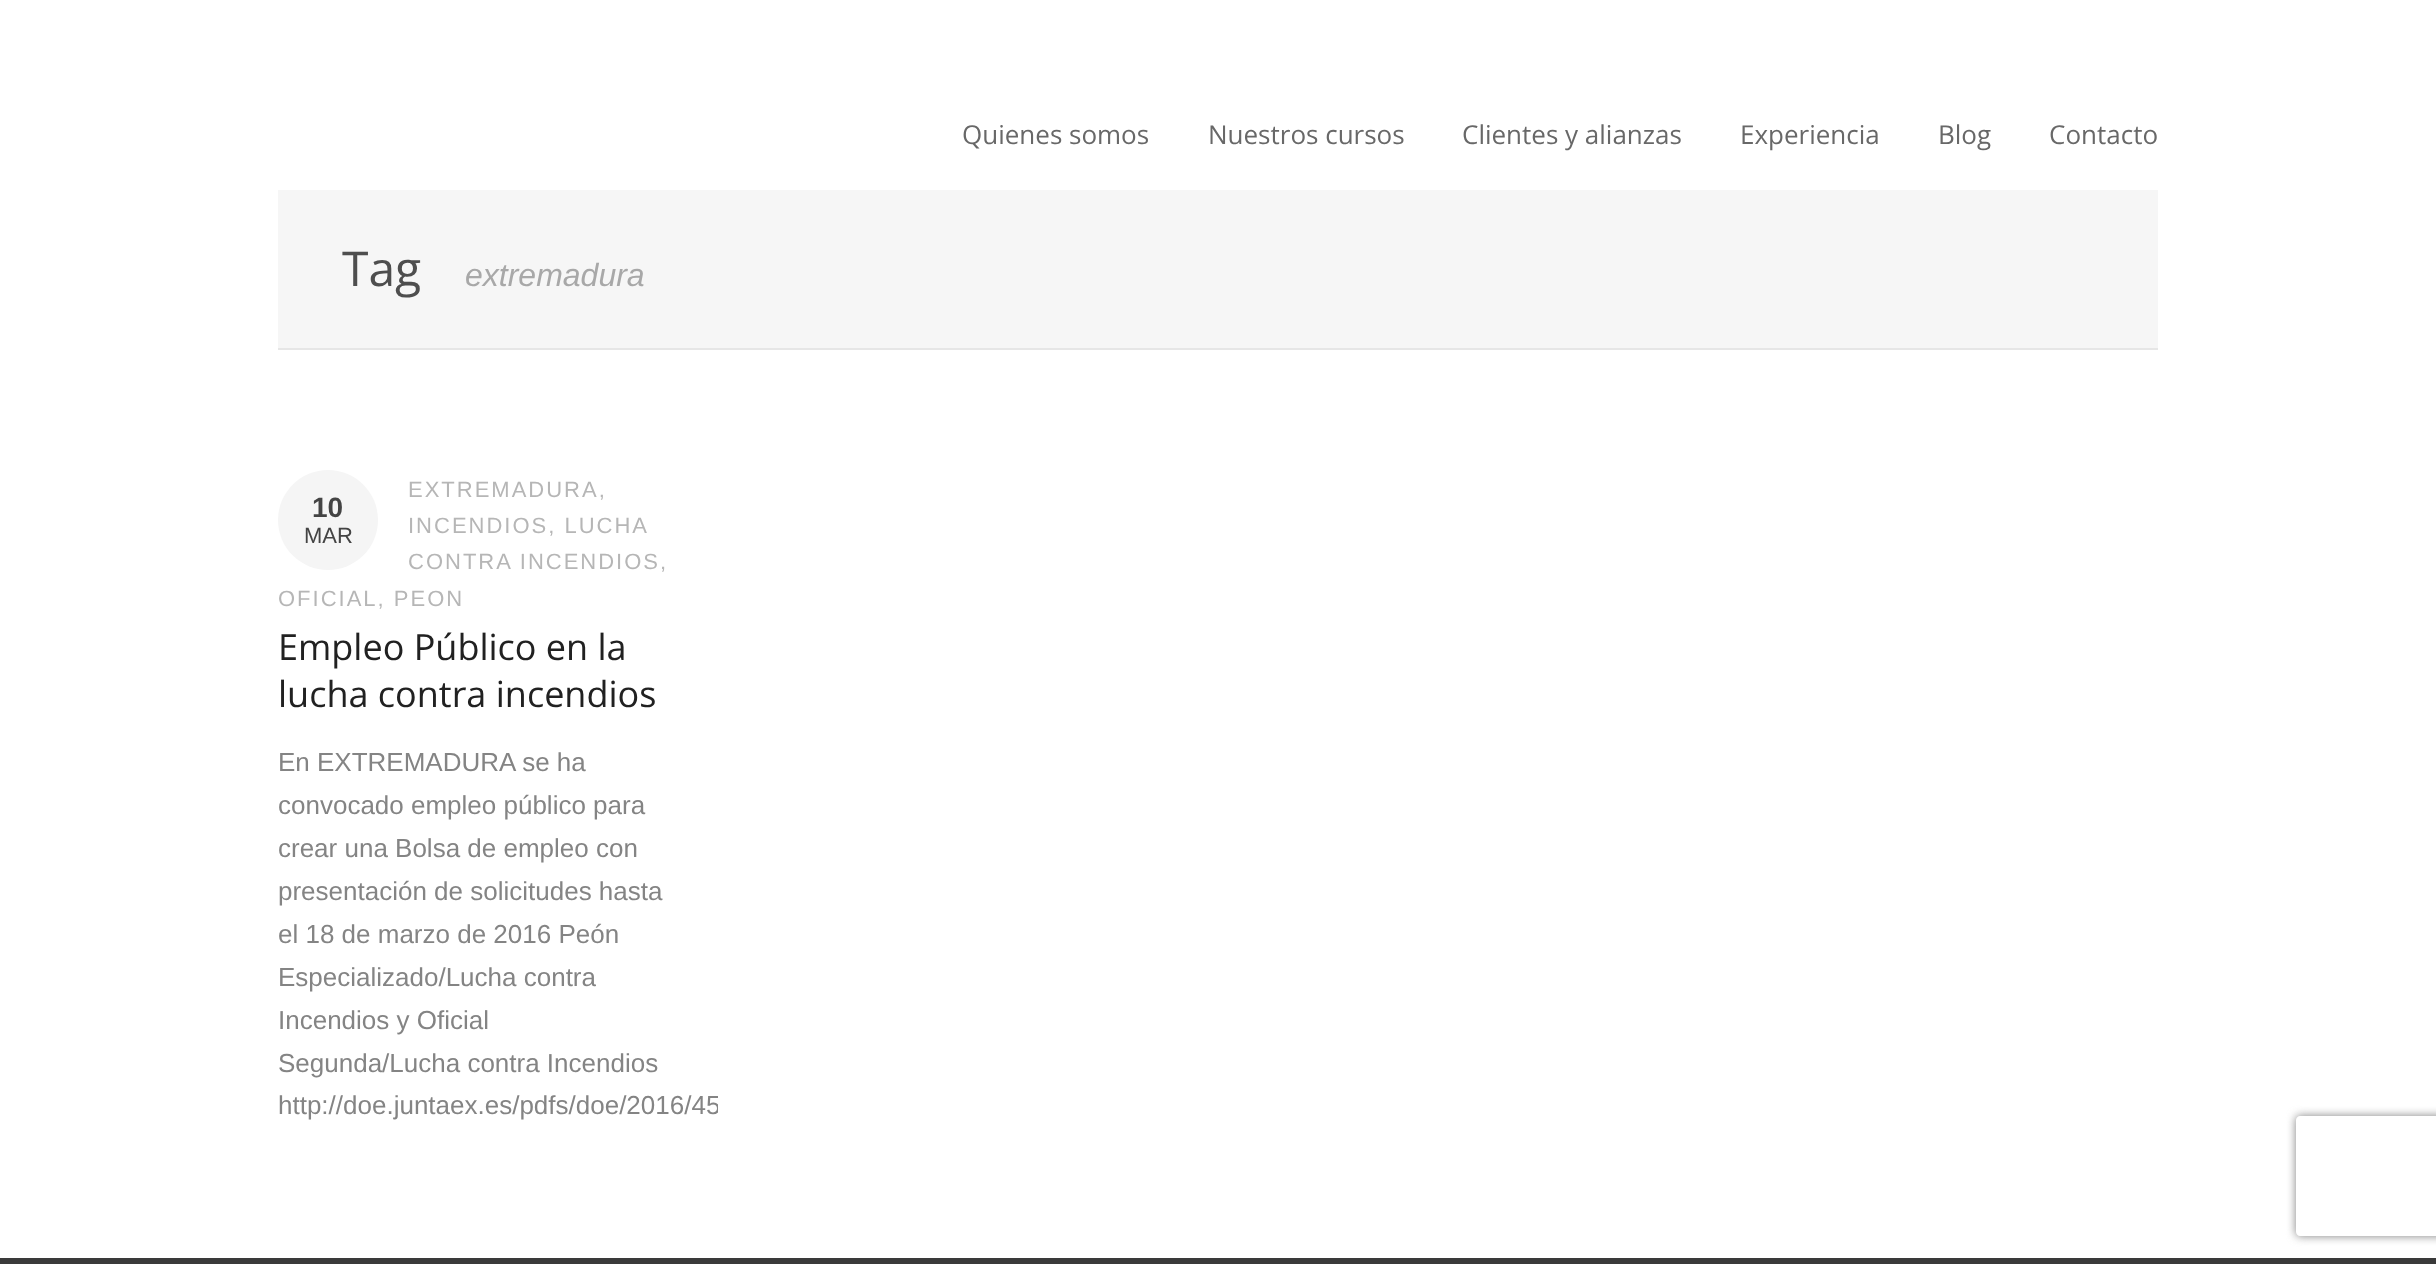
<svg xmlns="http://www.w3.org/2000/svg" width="2436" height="1264">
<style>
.a{font:26px Open Sans;fill:#686868}
.b{font:48px Open Sans;fill:#4e4e4e}
.c{font:italic 32px Liberation Sans;fill:#a8a8a8}
.d{font:22px Liberation Sans;letter-spacing:2px;fill:#b6b6b6}
.e{font:bold 28px Liberation Sans;fill:#444}
.f{font:22px Liberation Sans;fill:#444}
.g{font:36px Open Sans;fill:#212121}
.h{font:26px Liberation Sans;fill:#848484}
</style>
<defs>
<clipPath id="clip1"><path d="M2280 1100h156v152h-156zm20 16h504c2 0 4 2 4 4v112c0 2-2 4-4 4h-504c-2 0-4-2-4-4v-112c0-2 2-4 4-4z" clip-rule="evenodd"/></clipPath>
<clipPath id="clip2"><path d="M278 440h440v688H278z"/></clipPath>
</defs>
<rect width="100%" height="100%" fill="#fff"/>
<path fill="#f6f6f6" d="M278 190h1880v158H278z"/>
<path fill="#e6e6e6" d="M278 348h1880v2H278z"/>
<circle fill="#f5f5f5" cx="328" cy="520" r="50"/>
<path fill="#3a3a3a" d="M0 1258h2436v6H0z"/>
<g clip-path="url(#clip1)">
<rect fill="#808080" filter="blur(5px)" x="2296" y="1116" width="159" height="120" rx="4"/>
</g>
<text class="a" x="962" y="144">Quienes somos</text>
<text class="a" x="1208" y="144">Nuestros cursos</text>
<text class="a" x="1462" y="144">Clientes y alianzas</text>
<text class="a" x="1740" y="144">Experiencia</text>
<text class="a" x="1938" y="144">Blog</text>
<text class="a" x="2049" y="144">Contacto</text>
<text class="b" x="342" y="286">Tag</text>
<text class="c" x="465" y="286">extremadura</text>
<text class="d" x="408" y="497">EXTREMADURA,</text>
<text class="d" x="408" y="533">INCENDIOS, LUCHA</text>
<text class="d" x="408" y="569">CONTRA INCENDIOS,</text>
<text class="d" x="278" y="606">OFICIAL, PEON</text>
<text class="e" x="312" y="517">10</text>
<text class="f" x="304" y="543">MAR</text>
<text class="g" x="278" y="660">Empleo Público en la</text>
<text class="g" x="278" y="707">lucha contra incendios</text>
<text class="h" x="278" y="771">En EXTREMADURA se ha</text>
<text class="h" x="278" y="814">convocado empleo público para</text>
<text class="h" x="278" y="857">crear una Bolsa de empleo con</text>
<text class="h" x="278" y="900">presentación de solicitudes hasta</text>
<text class="h" x="278" y="943">el 18 de marzo de 2016 Peón</text>
<text class="h" x="278" y="986">Especializado/Lucha contra</text>
<text class="h" x="278" y="1029">Incendios y Oficial</text>
<text class="h" x="278" y="1072">Segunda/Lucha contra Incendios</text>
<g clip-path="url(#clip2)">
<text class="h" x="278" y="1114">http://doe.juntaex.es/pdfs/doe/2016/45</text>
</g>
</svg>
